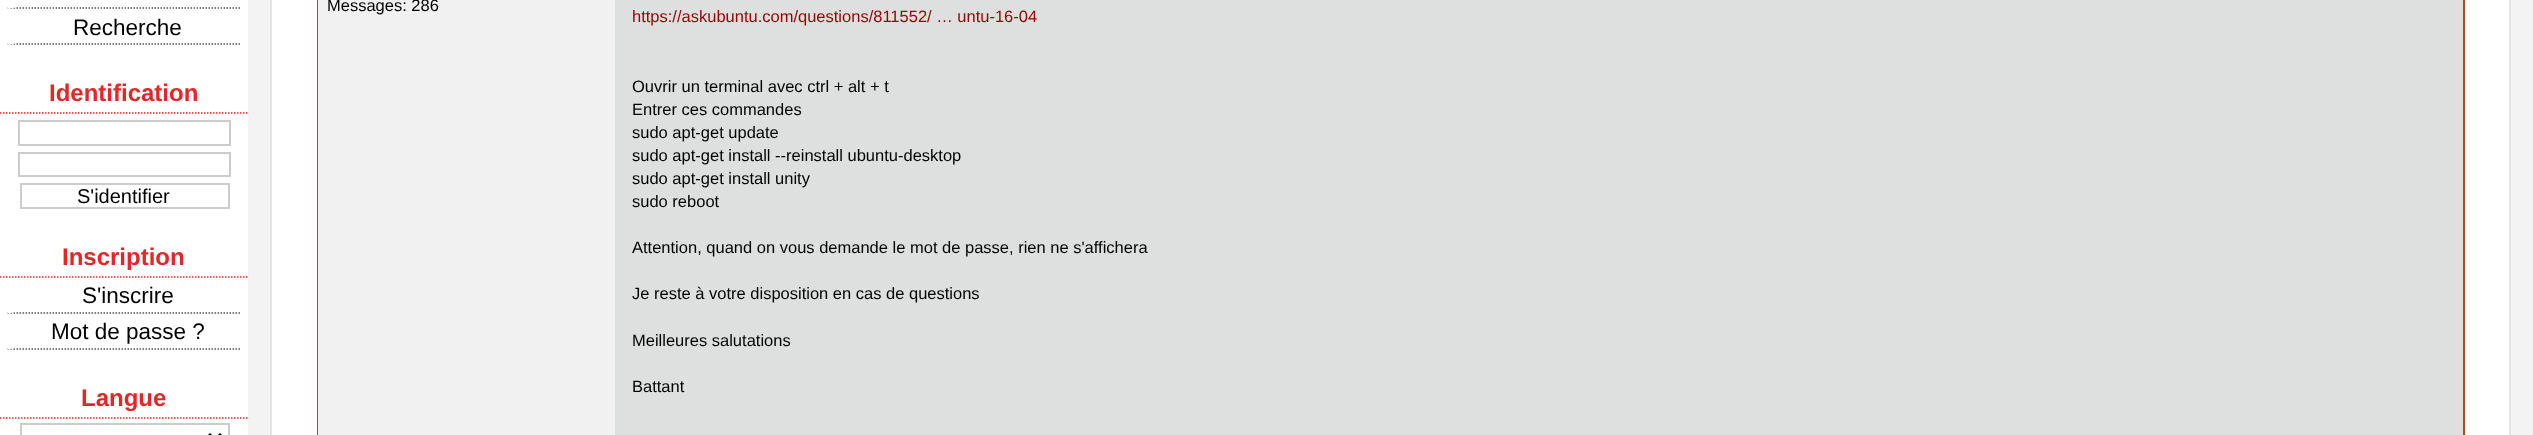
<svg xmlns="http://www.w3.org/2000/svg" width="2533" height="435">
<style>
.a{font:22.5px Liberation Sans;fill:#000}
.b{font:bold 24px Liberation Sans;fill:#e52626}
.c{font:20px Liberation Sans;fill:#000}
.d{font:16.5px Liberation Sans;fill:#000}
.e{font:16.5px Liberation Sans;fill:#900}
</style>
<rect width="100%" height="100%" fill="#f3f3f3"/>
<path fill="#fff" d="M0 0h248v435H0z"/>
<path fill="none" stroke="#555" stroke-width="1.5" stroke-dasharray="1.5 1.5" d="M7.5 8h232.5"/>
<path fill="#fff" d="M7.5 9v-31.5h7.5v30z"/>
<path fill="none" stroke="#555" stroke-width="1.5" stroke-dasharray="1.5 1.5" d="M7.5 44h232.5"/>
<path fill="#fff" d="M7.5 45v-31.5h7.5v30z"/>
<path fill="none" stroke="#e52626" stroke-width="1.5" stroke-dasharray="1.5 1.5" d="M0 113h247.5"/>
<path fill="none" stroke="#ccc" stroke-width="2" d="M19 121h211v24H19z"/>
<path fill="none" stroke="#ccc" stroke-width="2" d="M19 153h211v23H19z"/>
<path fill="none" stroke="#ccc" stroke-width="2" d="M21 184h208v24H21z"/>
<path fill="none" stroke="#e52626" stroke-width="1.5" stroke-dasharray="1.5 1.5" d="M0 277h247.5"/>
<path fill="none" stroke="#555" stroke-width="1.5" stroke-dasharray="1.5 1.5" d="M7.5 313h232.5"/>
<path fill="#fff" d="M7.5 313.5v-31.5h7.5v30z"/>
<path fill="none" stroke="#555" stroke-width="1.5" stroke-dasharray="1.5 1.5" d="M7.5 349h232.5"/>
<path fill="#fff" d="M7.5 349.5v-31.5h7.5v30z"/>
<path fill="none" stroke="#e52626" stroke-width="1.5" stroke-dasharray="1.5 1.5" d="M0 418h247.5"/>
<path fill="none" stroke="#ccc" stroke-width="2" d="M21 424h208v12H21z"/>
<path fill="none" stroke="#000" stroke-width="3" d="M209 434l6 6l6-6"/>
<path fill="#fff" stroke="#e3e3e3" stroke-width="2" d="M271 -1h2239v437H271z"/>
<path fill="#b84623" d="M2463 0h2v435H2463z"/>
<path fill="#b84623" d="M317 0h1v435H317z"/>
<path fill="#dedfdf" d="M615 0h1848v435H615z"/>
<path fill="#f1f1f1" d="M318 0h297v435H318z"/>
<text class="a" x="73" y="35">Recherche</text>
<text class="b" x="49" y="101">Identification</text>
<text class="c" x="77" y="203">S'identifier</text>
<text class="b" x="62" y="265">Inscription</text>
<text class="a" x="82" y="303">S'inscrire</text>
<text class="a" x="51" y="339">Mot de passe ?</text>
<text class="b" x="81" y="406">Langue</text>
<text class="d" x="327" y="11">Messages: 286</text>
<text class="e" x="632" y="22">https://askubuntu.com/questions/811552/ … untu-16-04</text>
<text class="d" x="632" y="92">Ouvrir un terminal avec ctrl + alt + t</text>
<text class="d" x="632" y="115">Entrer ces commandes</text>
<text class="d" x="632" y="138">sudo apt-get update</text>
<text class="d" x="632" y="161">sudo apt-get install --reinstall ubuntu-desktop</text>
<text class="d" x="632" y="184">sudo apt-get install unity</text>
<text class="d" x="632" y="207">sudo reboot</text>
<text class="d" x="632" y="253">Attention, quand on vous demande le mot de passe, rien ne s'affichera</text>
<text class="d" x="632" y="299">Je reste à votre disposition en cas de questions</text>
<text class="d" x="632" y="346">Meilleures salutations</text>
<text class="d" x="632" y="392">Battant</text>
</svg>
